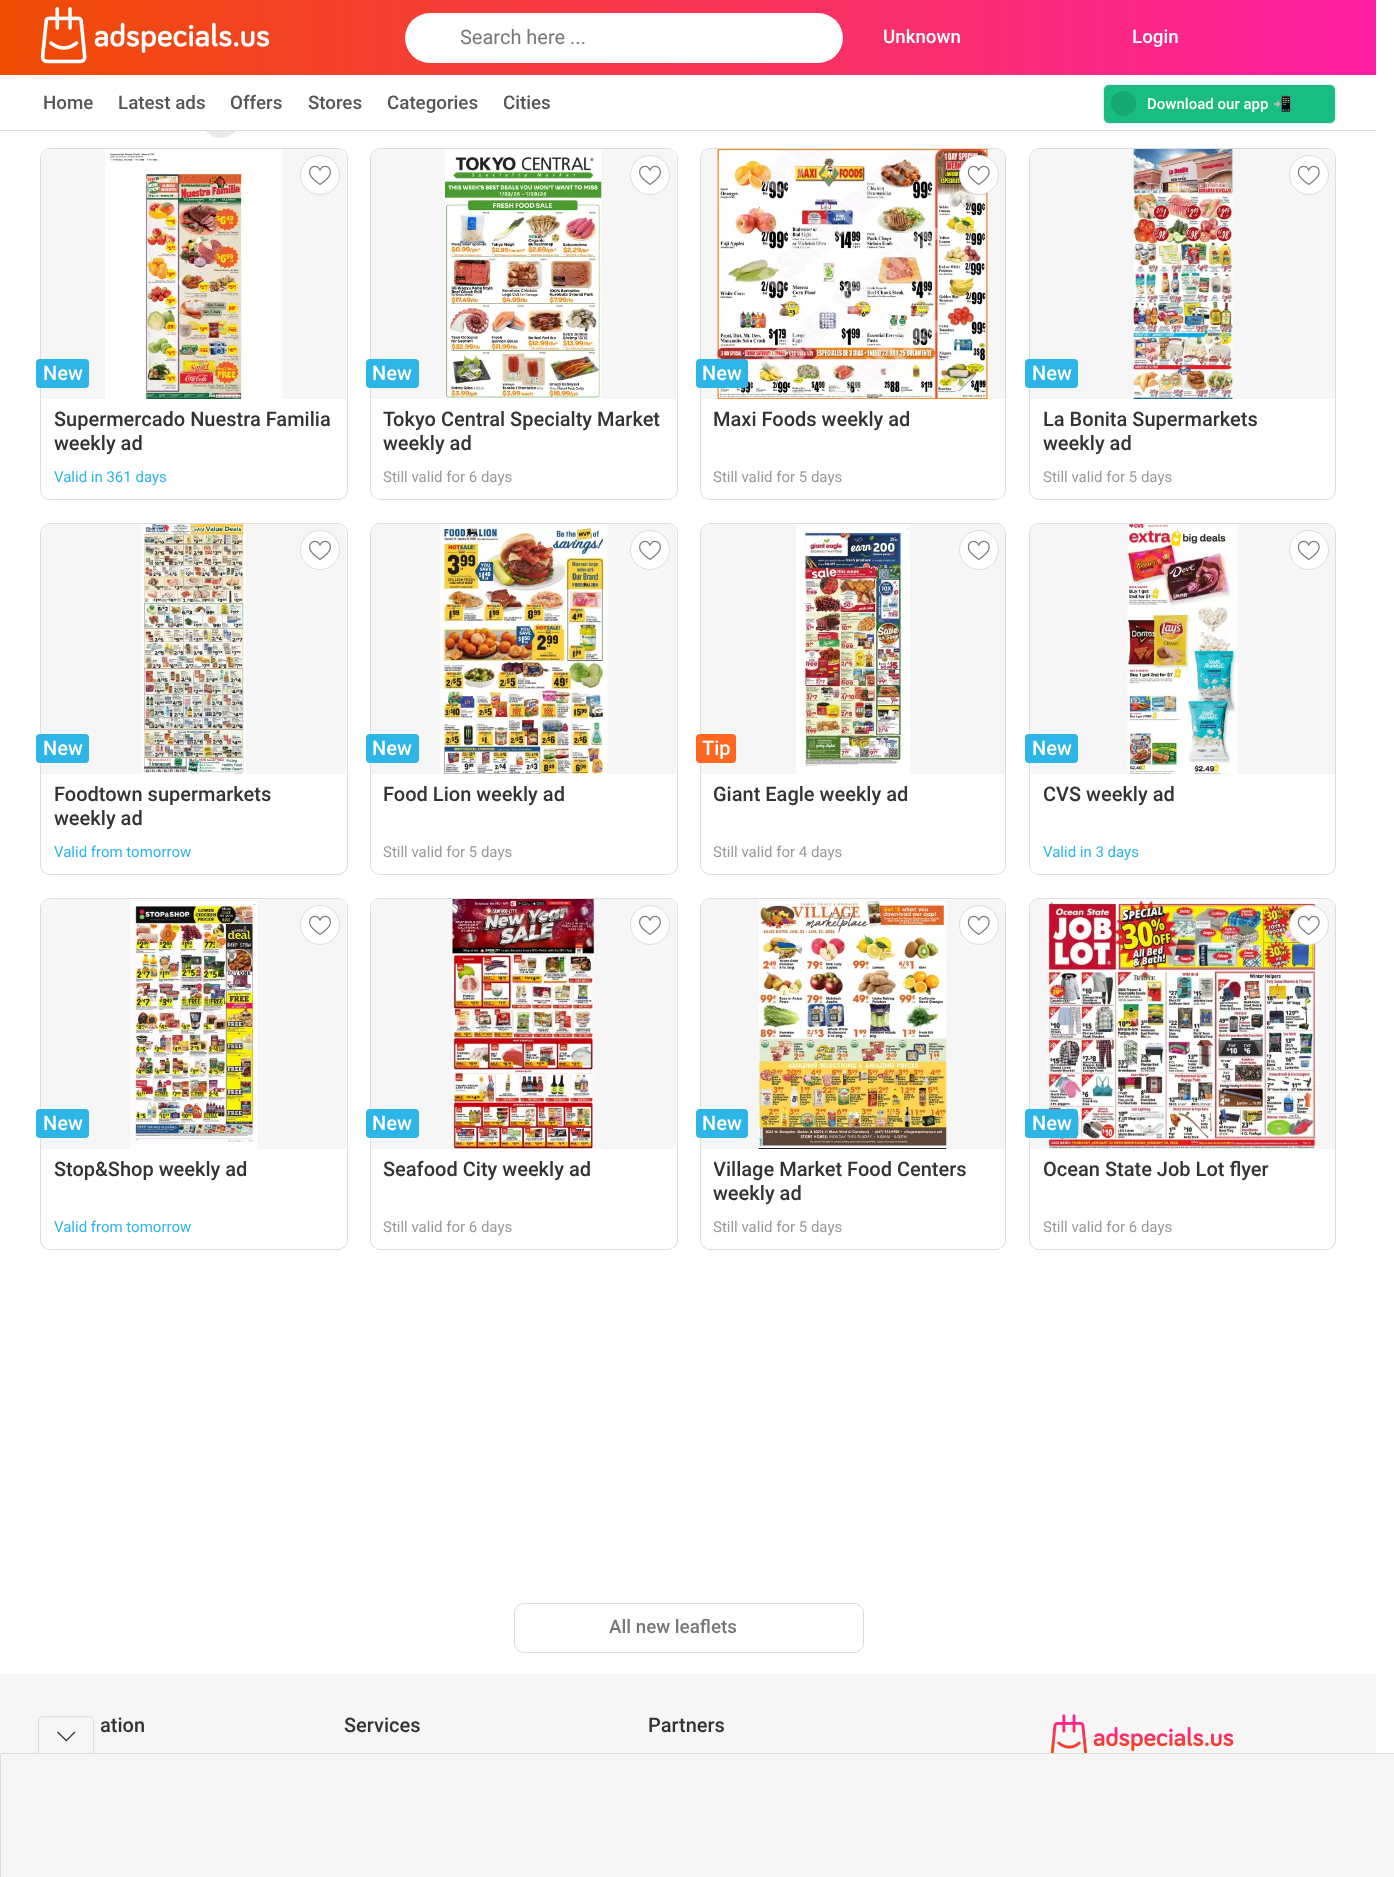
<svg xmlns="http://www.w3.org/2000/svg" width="1394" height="1877">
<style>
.a{font:20px Roboto;fill:#777}
.b{font:500 18.75px Roboto;fill:#fff}
.c{font:500 18.75px Roboto;fill:#555}
.d{font:500 15px Roboto;fill:#fff}
.e{font:15px Noto Color Emoji;fill:#fff}
.f{font:500 20px Roboto;fill:#fff}
.g{font:500 20px Roboto;fill:#333}
.h{font:15px Roboto;fill:#2cb5e6}
.i{font:15px Roboto;fill:#999}
.j{font:500 18.75px Roboto;fill:#777}
</style>
<defs>
<linearGradient id="g1" gradientUnits="userSpaceOnUse" x1="1376" y1="65" x2="0" y2="65"><stop offset="0" stop-color="#ff1fa3"/><stop offset="1" stop-color="#f04c03"/></linearGradient>
<clipPath id="clip1"><path d="M714 1158h279v47H714z"/></clipPath>
</defs>
<rect width="100%" height="100%" fill="#fff"/>
<circle fill="#eaeaea" stroke="#eaeaea" cx="221" cy="118" r="19.5"/>
<path fill="#ddd" filter="blur(0.5px)" d="M0 1h1376v130H0z"/>
<path fill="url(#g1)" d="M0 0h1376v75H0z"/>
<image href="1.png" x="40" y="7" width="230" height="57"/>
<rect fill="#fff" x="405" y="13" width="438" height="50" rx="25"/>
<path fill="#fff" d="M0 75h1376v55H0z"/>
<rect fill="#19bc81" stroke="#eaeaea" x="1103.5" y="84.5" width="232" height="39" rx="5.5"/>
<circle fill="#17a974" cx="1123.5" cy="103.5" r="12.5"/>
<rect fill="none" stroke="#ddd" x="40.5" y="148.5" width="307" height="351" rx="9.5"/>
<path fill="#f6f6f6" d="M51 149h285c5.5 0 10 4.5 10 10v240h-305v-240c0-5.5 4.5-10 10-10z"/>
<circle fill="#fff" stroke="#ddd" cx="320" cy="175" r="19.5"/>
<image href="2.png" x="309" y="165" width="22" height="20"/>
<image href="3.png" x="105" y="149" width="178" height="250"/>
<rect fill="#2cb5e6" x="36" y="359" width="53" height="29" rx="4"/>
<path fill="#fff" d="M41 399h305v90c0 5.5-4.5 10-10 10h-285c-5.5 0-10-4.5-10-10z"/>
<rect fill="none" stroke="#ddd" x="370.5" y="148.5" width="307" height="351" rx="9.5"/>
<path fill="#f6f6f6" d="M381 149h285c5.5 0 10 4.5 10 10v240h-305v-240c0-5.5 4.5-10 10-10z"/>
<circle fill="#fff" stroke="#ddd" cx="650" cy="175" r="19.5"/>
<image href="2.png" x="639" y="165" width="22" height="20"/>
<image href="4.png" x="445" y="149" width="157" height="250"/>
<rect fill="#2cb5e6" x="366" y="359" width="53" height="29" rx="4"/>
<path fill="#fff" d="M371 399h305v90c0 5.5-4.5 10-10 10h-285c-5.5 0-10-4.5-10-10z"/>
<rect fill="none" stroke="#ddd" x="700.5" y="148.5" width="305" height="351" rx="9.5"/>
<path fill="#f6f6f6" d="M711 149h284c5.5 0 10 4.5 10 10v240h-304v-240c0-5.5 4.5-10 10-10z"/>
<image href="6.png" x="717" y="149" width="271" height="250"/>
<circle fill="#fff" stroke="#ddd" cx="979" cy="175" r="19.5"/>
<image href="5.png" x="967" y="165" width="23" height="20"/>
<rect fill="#2cb5e6" x="696" y="359" width="52" height="29" rx="4"/>
<path fill="#fff" d="M701 399h304v90c0 5.5-4.5 10-10 10h-284c-5.5 0-10-4.5-10-10z"/>
<rect fill="none" stroke="#ddd" x="1029.5" y="148.5" width="306" height="351" rx="9.5"/>
<path fill="#f6f6f6" d="M1040 149h285c5.5 0 10 4.5 10 10v240h-305v-240c0-5.5 4.5-10 10-10z"/>
<circle fill="#fff" stroke="#ddd" cx="1309" cy="175" r="19.5"/>
<image href="5.png" x="1297" y="165" width="23" height="20"/>
<image href="7.png" x="1133" y="149" width="100" height="250"/>
<rect fill="#2cb5e6" x="1025" y="359" width="53" height="29" rx="4"/>
<path fill="#fff" d="M1030 399h305v90c0 5.5-4.5 10-10 10h-285c-5.5 0-10-4.5-10-10z"/>
<rect fill="none" stroke="#ddd" x="40.5" y="523.5" width="307" height="351" rx="9.5"/>
<path fill="#f6f6f6" d="M51 524h285c5.5 0 10 4.5 10 10v240h-305v-240c0-5.5 4.5-10 10-10z"/>
<circle fill="#fff" stroke="#ddd" cx="320" cy="550" r="19.5"/>
<image href="2.png" x="309" y="540" width="22" height="20"/>
<image href="8.png" x="141" y="524" width="105" height="250"/>
<rect fill="#2cb5e6" x="36" y="734" width="53" height="29" rx="4"/>
<path fill="#fff" d="M41 774h305v90c0 5.5-4.5 10-10 10h-285c-5.5 0-10-4.5-10-10z"/>
<rect fill="none" stroke="#ddd" x="370.5" y="523.5" width="307" height="351" rx="9.5"/>
<path fill="#f6f6f6" d="M381 524h285c5.5 0 10 4.5 10 10v240h-305v-240c0-5.5 4.5-10 10-10z"/>
<circle fill="#fff" stroke="#ddd" cx="650" cy="550" r="19.5"/>
<image href="2.png" x="639" y="540" width="22" height="20"/>
<image href="9.png" x="440" y="524" width="168" height="250"/>
<rect fill="#2cb5e6" x="366" y="734" width="53" height="29" rx="4"/>
<path fill="#fff" d="M371 774h305v90c0 5.5-4.5 10-10 10h-285c-5.5 0-10-4.5-10-10z"/>
<rect fill="none" stroke="#ddd" x="700.5" y="523.5" width="305" height="351" rx="9.5"/>
<path fill="#f6f6f6" d="M711 524h284c5.5 0 10 4.5 10 10v240h-304v-240c0-5.5 4.5-10 10-10z"/>
<circle fill="#fff" stroke="#ddd" cx="979" cy="550" r="19.5"/>
<image href="5.png" x="967" y="540" width="23" height="20"/>
<image href="10.png" x="796" y="524" width="114" height="250"/>
<rect fill="#ff661f" x="696" y="734" width="40" height="29" rx="4"/>
<path fill="#fff" d="M701 774h304v90c0 5.5-4.5 10-10 10h-284c-5.5 0-10-4.5-10-10z"/>
<rect fill="none" stroke="#ddd" x="1029.5" y="523.5" width="306" height="351" rx="9.5"/>
<path fill="#f6f6f6" d="M1040 524h285c5.5 0 10 4.5 10 10v240h-305v-240c0-5.5 4.5-10 10-10z"/>
<circle fill="#fff" stroke="#ddd" cx="1309" cy="550" r="19.5"/>
<image href="5.png" x="1297" y="540" width="23" height="20"/>
<image href="11.png" x="1127" y="524" width="111" height="250"/>
<rect fill="#2cb5e6" x="1025" y="734" width="53" height="29" rx="4"/>
<path fill="#fff" d="M1030 774h305v90c0 5.5-4.5 10-10 10h-285c-5.5 0-10-4.5-10-10z"/>
<rect fill="none" stroke="#ddd" x="40.5" y="898.5" width="307" height="351" rx="9.5"/>
<path fill="#f6f6f6" d="M51 899h285c5.5 0 10 4.5 10 10v240h-305v-240c0-5.5 4.5-10 10-10z"/>
<circle fill="#fff" stroke="#ddd" cx="320" cy="925" r="19.5"/>
<image href="2.png" x="309" y="915" width="22" height="20"/>
<image href="12.png" x="130" y="899" width="128" height="250"/>
<rect fill="#2cb5e6" x="36" y="1109" width="53" height="29" rx="4"/>
<path fill="#fff" d="M41 1149h305v90c0 5.5-4.5 10-10 10h-285c-5.5 0-10-4.5-10-10z"/>
<rect fill="none" stroke="#ddd" x="370.5" y="898.5" width="307" height="351" rx="9.5"/>
<path fill="#f6f6f6" d="M381 899h285c5.5 0 10 4.5 10 10v240h-305v-240c0-5.5 4.5-10 10-10z"/>
<circle fill="#fff" stroke="#ddd" cx="650" cy="925" r="19.5"/>
<image href="2.png" x="639" y="915" width="22" height="20"/>
<image href="13.png" x="452" y="899" width="142" height="250"/>
<rect fill="#2cb5e6" x="366" y="1109" width="53" height="29" rx="4"/>
<path fill="#fff" d="M371 1149h305v90c0 5.5-4.5 10-10 10h-285c-5.5 0-10-4.5-10-10z"/>
<rect fill="none" stroke="#ddd" x="700.5" y="898.5" width="305" height="351" rx="9.5"/>
<path fill="#f6f6f6" d="M711 899h284c5.5 0 10 4.5 10 10v240h-304v-240c0-5.5 4.5-10 10-10z"/>
<circle fill="#fff" stroke="#ddd" cx="979" cy="925" r="19.5"/>
<image href="5.png" x="967" y="915" width="23" height="20"/>
<image href="14.png" x="758" y="899" width="189" height="250"/>
<rect fill="#2cb5e6" x="696" y="1109" width="52" height="29" rx="4"/>
<path fill="#fff" d="M701 1149h304v90c0 5.5-4.5 10-10 10h-284c-5.5 0-10-4.5-10-10z"/>
<rect fill="none" stroke="#ddd" x="1029.5" y="898.5" width="306" height="351" rx="9.5"/>
<path fill="#f6f6f6" d="M1040 899h285c5.5 0 10 4.5 10 10v240h-305v-240c0-5.5 4.5-10 10-10z"/>
<image href="15.png" x="1047" y="899" width="271" height="250"/>
<circle fill="#fff" stroke="#ddd" cx="1309" cy="925" r="19.5"/>
<image href="5.png" x="1297" y="915" width="23" height="20"/>
<rect fill="#2cb5e6" x="1025" y="1109" width="53" height="29" rx="4"/>
<path fill="#fff" d="M1030 1149h305v90c0 5.5-4.5 10-10 10h-285c-5.5 0-10-4.5-10-10z"/>
<rect fill="none" stroke="#ddd" x="514.5" y="1603.5" width="349" height="49" rx="9.5"/>
<path fill="#f6f6f6" stroke="#ddd" d="M0.5 1753.5h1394v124H0.5z"/>
<path fill="#f6f6f6" d="M0 1674h1376v79H0z"/>
<path fill="#f6f6f6" stroke="#ddd" d="M43 1716.5h46c2.5 0 4.5 2 4.5 4.5v32.5h-55v-32.5c0-2.5 2-4.5 4.5-4.5z"/>
<image href="16.png" x="57" y="1731" width="19" height="11"/>
<image href="17.png" x="1050" y="1714" width="184" height="39"/>
<text class="a" x="460" y="44">Search here ...</text>
<text class="b" x="883" y="43">Unknown</text>
<text class="b" x="1132" y="43">Login</text>
<text class="c" x="43" y="109">Home</text>
<text class="c" x="118" y="109">Latest ads</text>
<text class="c" x="230" y="109">Offers</text>
<text class="c" x="308" y="109">Stores</text>
<text class="c" x="387" y="109">Categories</text>
<text class="c" x="503" y="109">Cities</text>
<text class="d" x="1147" y="109">Download our app</text>
<text class="e" x="1273" y="109">📲</text>
<text class="f" x="43" y="380">New</text>
<text class="g" x="54" y="426">Supermercado Nuestra Familia</text>
<text class="g" x="54" y="450">weekly ad</text>
<text class="h" x="54" y="482">Valid in 361 days</text>
<text class="f" x="372" y="380">New</text>
<text class="g" x="383" y="426">Tokyo Central Specialty Market</text>
<text class="g" x="383" y="450">weekly ad</text>
<text class="i" x="383" y="482">Still valid for 6 days</text>
<text class="f" x="702" y="380">New</text>
<text class="g" x="713" y="426">Maxi Foods weekly ad</text>
<text class="i" x="713" y="482">Still valid for 5 days</text>
<text class="f" x="1032" y="380">New</text>
<text class="g" x="1043" y="426">La Bonita Supermarkets</text>
<text class="g" x="1043" y="450">weekly ad</text>
<text class="i" x="1043" y="482">Still valid for 5 days</text>
<text class="f" x="43" y="755">New</text>
<text class="g" x="54" y="801">Foodtown supermarkets</text>
<text class="g" x="54" y="825">weekly ad</text>
<text class="h" x="54" y="857">Valid from tomorrow</text>
<text class="f" x="372" y="755">New</text>
<text class="g" x="383" y="801">Food Lion weekly ad</text>
<text class="i" x="383" y="857">Still valid for 5 days</text>
<text class="f" x="702" y="755">Tip</text>
<text class="g" x="713" y="801">Giant Eagle weekly ad</text>
<text class="i" x="713" y="857">Still valid for 4 days</text>
<text class="f" x="1032" y="755">New</text>
<text class="g" x="1043" y="801">CVS weekly ad</text>
<text class="h" x="1043" y="857">Valid in 3 days</text>
<text class="f" x="43" y="1130">New</text>
<text class="g" x="54" y="1176">Stop&amp;Shop weekly ad</text>
<text class="h" x="54" y="1232">Valid from tomorrow</text>
<text class="f" x="372" y="1130">New</text>
<text class="g" x="383" y="1176">Seafood City weekly ad</text>
<text class="i" x="383" y="1232">Still valid for 6 days</text>
<text class="f" x="702" y="1130">New</text>
<g clip-path="url(#clip1)">
<text class="g" x="713" y="1176">Village Market Food Centers</text>
</g>
<text class="g" x="713" y="1200">weekly ad</text>
<text class="i" x="713" y="1232">Still valid for 5 days</text>
<text class="f" x="1032" y="1130">New</text>
<text class="g" x="1043" y="1176">Ocean State Job Lot flyer</text>
<text class="i" x="1043" y="1232">Still valid for 6 days</text>
<text class="j" x="609" y="1633">All new leaflets</text>
<text class="g" x="100" y="1732">ation</text>
<text class="g" x="344" y="1732">Services</text>
<text class="g" x="648" y="1732">Partners</text>
</svg>
